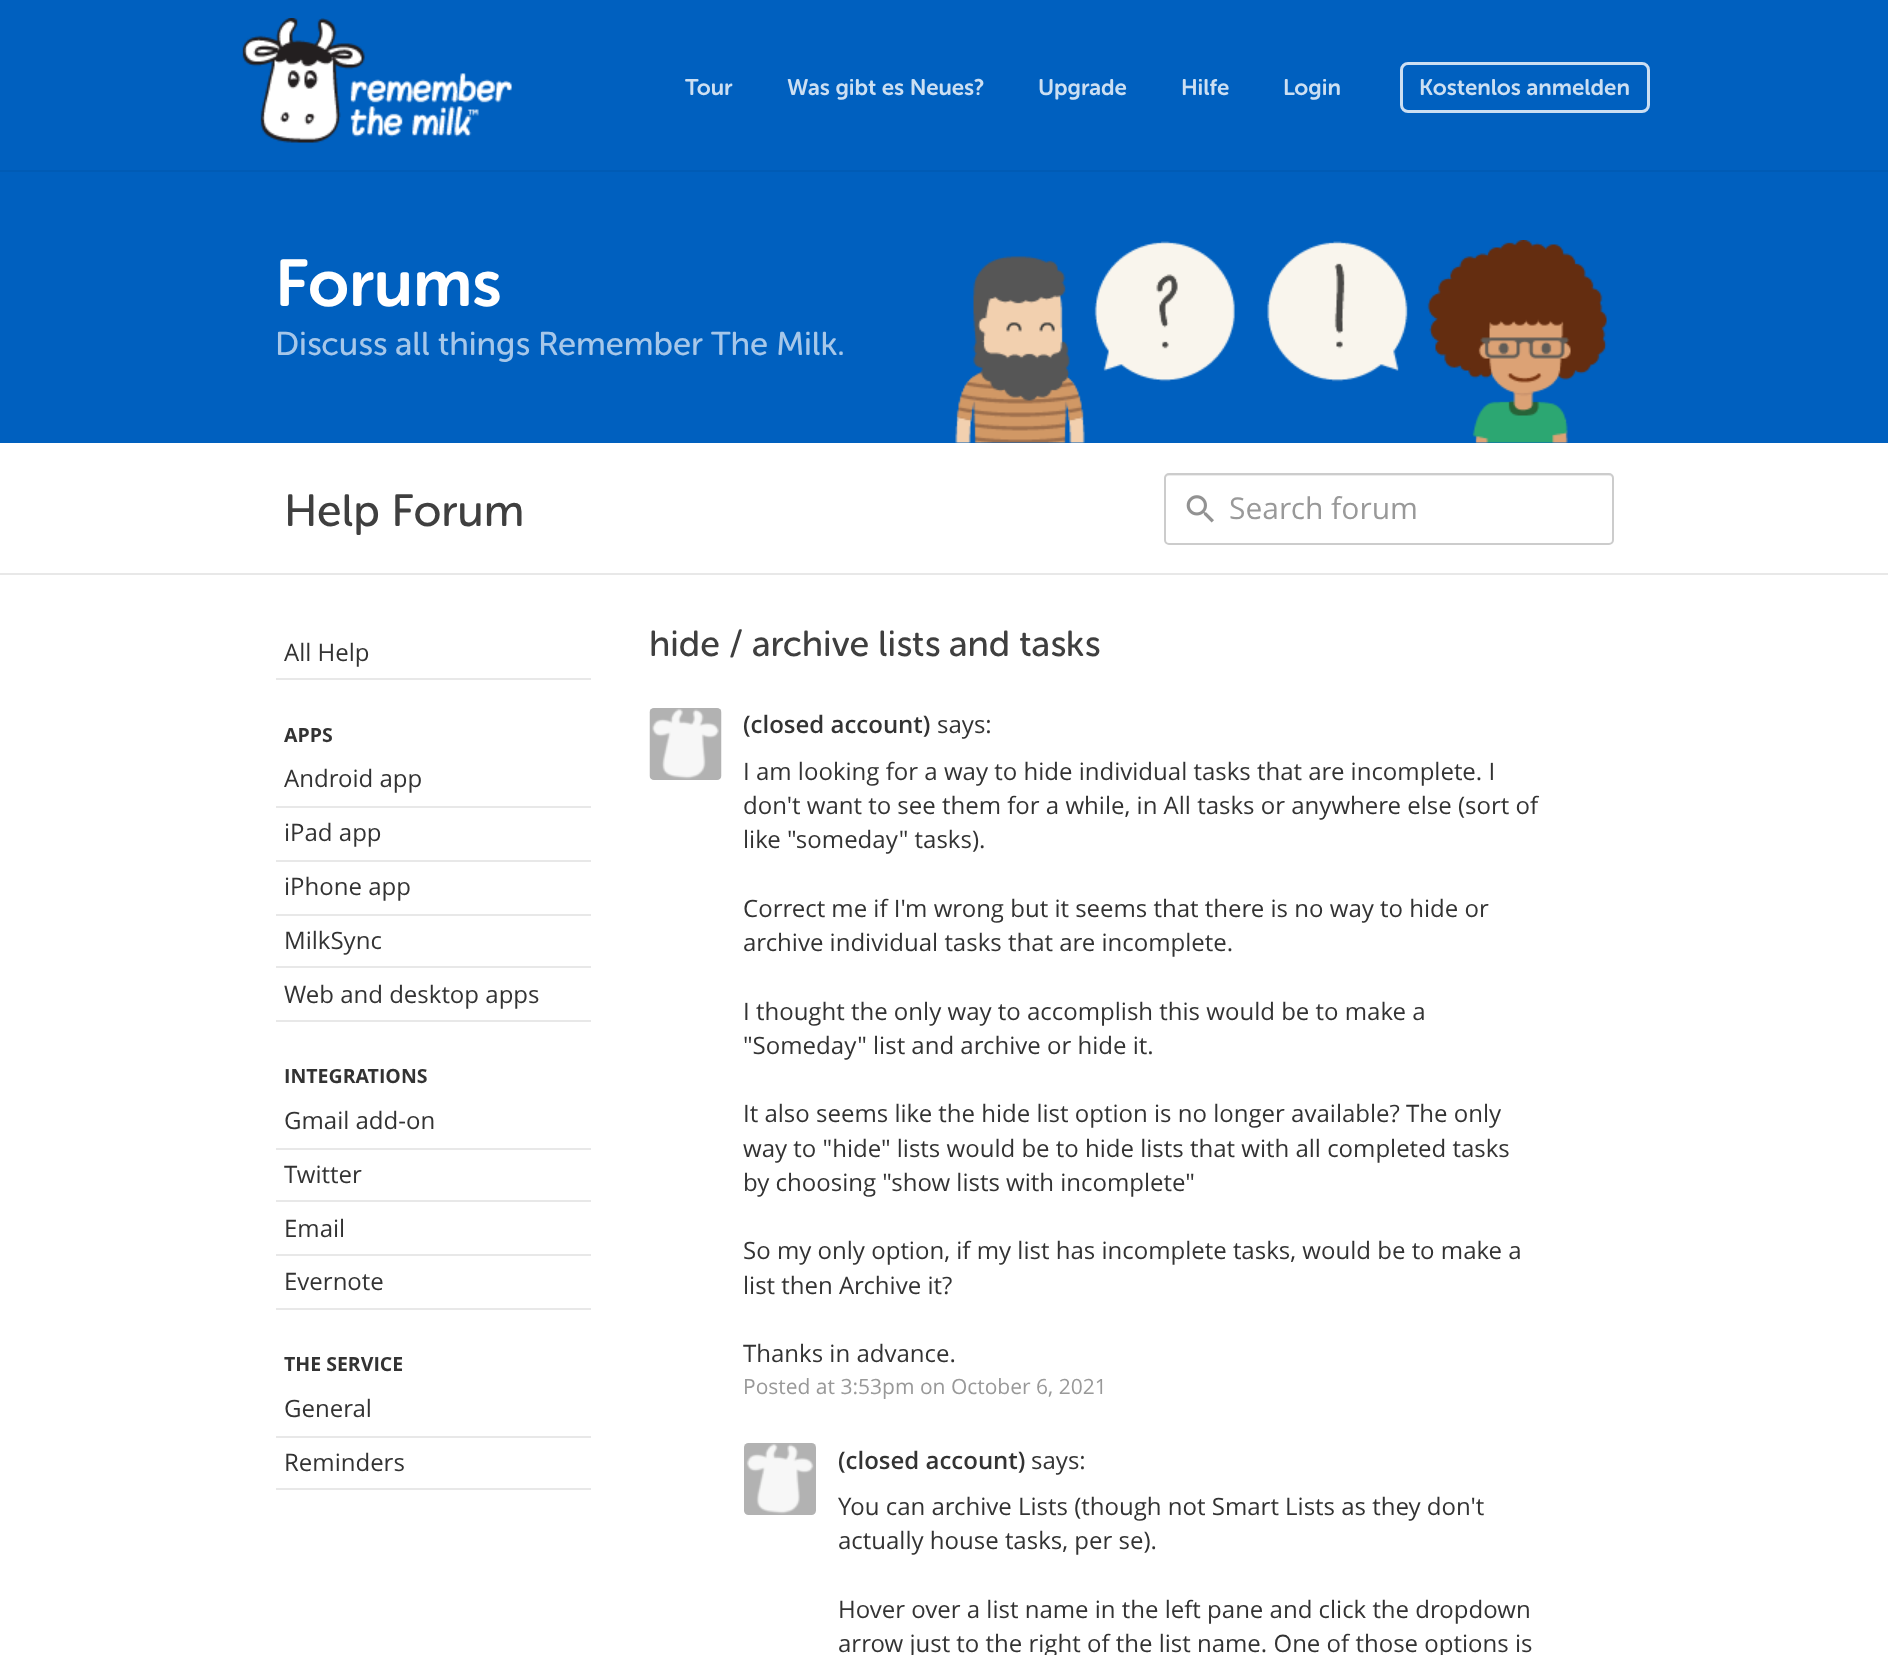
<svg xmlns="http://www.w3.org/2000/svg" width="1888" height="1655">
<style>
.a{font:600 22.5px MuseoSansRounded;fill:#ccdff2}
.b{font:600 66px MuseoSansRounded;fill:#fff}
.c{font:33px Museo Sans Rounded;fill:#a6c7e9}
.d{font:45px Museo Sans Rounded;fill:#3f3f3f}
.e{font:30px Open Sans;fill:#999}
.f{font:24px Open Sans;fill:#333}
.g{font:bold 19.5px Open Sans;fill:#333}
.h{font:36px Museo Sans Rounded;fill:#3f3f3f}
.i{font:600 24px Open Sans;fill:#333}
.j{font:21px Open Sans;fill:#999}
</style>
<rect width="100%" height="100%" fill="#fff"/>
<path fill="#0060bf" d="M0 0h1888v170H0z"/>
<path fill="#005bb5" d="M0 170h1888v2H0z"/>
<image href="1.png" x="242" y="18" width="270" height="125"/>
<rect fill="none" stroke="#ccdff2" stroke-width="3" x="1401.5" y="63.5" width="247" height="48" rx="6.5"/>
<path fill="#0060bf" d="M0 172h1888v271H0z"/>
<image href="2.png" x="955" y="240" width="652" height="203"/>
<path fill="#e8e8e8" d="M0 573h1888v2H0z"/>
<path fill="#ececec" d="M1168 476h442c1 0 2 1 2 2v64c1 0 1-1 1-2v-63c0-2-1-3-3-3h-441c-2 0-3 1-3 3v1c0-1 1-2 2-2z"/>
<rect fill="none" stroke="#ccc" stroke-width="2" x="1165" y="474" width="448" height="70" rx="4"/>
<image href="3.png" x="1186" y="495" width="28" height="28"/>
<path fill="#e8e8e8" d="M276 678h315v2H276z"/>
<path fill="#e8e8e8" d="M276 806h315v2H276z"/>
<path fill="#e8e8e8" d="M276 860h315v2H276z"/>
<path fill="#e8e8e8" d="M276 914h315v2H276z"/>
<path fill="#e8e8e8" d="M276 966h315v2H276z"/>
<path fill="#e8e8e8" d="M276 1020h315v2H276z"/>
<path fill="#e8e8e8" d="M276 1148h315v2H276z"/>
<path fill="#e8e8e8" d="M276 1200h315v2H276z"/>
<path fill="#e8e8e8" d="M276 1254h315v2H276z"/>
<path fill="#e8e8e8" d="M276 1308h315v2H276z"/>
<path fill="#e8e8e8" d="M276 1436h315v2H276z"/>
<path fill="#e8e8e8" d="M276 1488h315v2H276z"/>
<image href="4.png" x="649" y="708" width="73" height="72"/>
<image href="5.png" x="744" y="1443" width="72" height="72"/>
<text class="a" x="685" y="95">Tour</text>
<text class="a" x="787" y="95">Was gibt es Neues?</text>
<text class="a" x="1038" y="95">Upgrade</text>
<text class="a" x="1181" y="95">Hilfe</text>
<text class="a" x="1283" y="95">Login</text>
<text class="a" x="1419" y="95">Kostenlos anmelden</text>
<text class="b" x="275" y="306">Forums</text>
<text class="c" x="275" y="355">Discuss all things Remember The Milk.</text>
<text class="d" x="284" y="526">Help Forum</text>
<text class="e" x="1229" y="519">Search forum</text>
<text class="f" x="284" y="661">All Help</text>
<text class="g" x="284" y="742">APPS</text>
<text class="f" x="284" y="787">Android app</text>
<text class="f" x="284" y="841">iPad app</text>
<text class="f" x="284" y="895">iPhone app</text>
<text class="f" x="284" y="949">MilkSync</text>
<text class="f" x="284" y="1003">Web and desktop apps</text>
<text class="g" x="284" y="1083">INTEGRATIONS</text>
<text class="f" x="284" y="1129">Gmail add-on</text>
<text class="f" x="284" y="1183">Twitter</text>
<text class="f" x="284" y="1237">Email</text>
<text class="f" x="284" y="1290">Evernote</text>
<text class="g" x="284" y="1371">THE SERVICE</text>
<text class="f" x="284" y="1417">General</text>
<text class="f" x="284" y="1471">Reminders</text>
<text class="h" x="649" y="656">hide / archive lists and tasks</text>
<text class="i" x="743" y="733">(closed account)</text>
<text class="f" x="937" y="733">says:</text>
<text class="f" x="743" y="780">I am looking for a way to hide individual tasks that are incomplete. I</text>
<text class="f" x="743" y="814">don't want to see them for a while, in All tasks or anywhere else (sort of</text>
<text class="f" x="743" y="848">like "someday" tasks).</text>
<text class="f" x="743" y="917">Correct me if I'm wrong but it seems that there is no way to hide or</text>
<text class="f" x="743" y="951">archive individual tasks that are incomplete.</text>
<text class="f" x="743" y="1020">I thought the only way to accomplish this would be to make a</text>
<text class="f" x="743" y="1054">"Someday" list and archive or hide it.</text>
<text class="f" x="743" y="1122">It also seems like the hide list option is no longer available? The only</text>
<text class="f" x="743" y="1157">way to "hide" lists would be to hide lists that with all completed tasks</text>
<text class="f" x="743" y="1191">by choosing "show lists with incomplete"</text>
<text class="f" x="743" y="1259">So my only option, if my list has incomplete tasks, would be to make a</text>
<text class="f" x="743" y="1294">list then Archive it?</text>
<text class="f" x="743" y="1362">Thanks in advance.</text>
<text class="j" x="743" y="1394">Posted at 3:53pm on October 6, 2021</text>
<text class="i" x="838" y="1469">(closed account)</text>
<text class="f" x="1031" y="1469">says:</text>
<text class="f" x="838" y="1515">You can archive Lists (though not Smart Lists as they don't</text>
<text class="f" x="838" y="1549">actually house tasks, per se).</text>
<text class="f" x="838" y="1618">Hover over a list name in the left pane and click the dropdown</text>
<text class="f" x="838" y="1652">arrow just to the right of the list name. One of those options is</text>
</svg>
